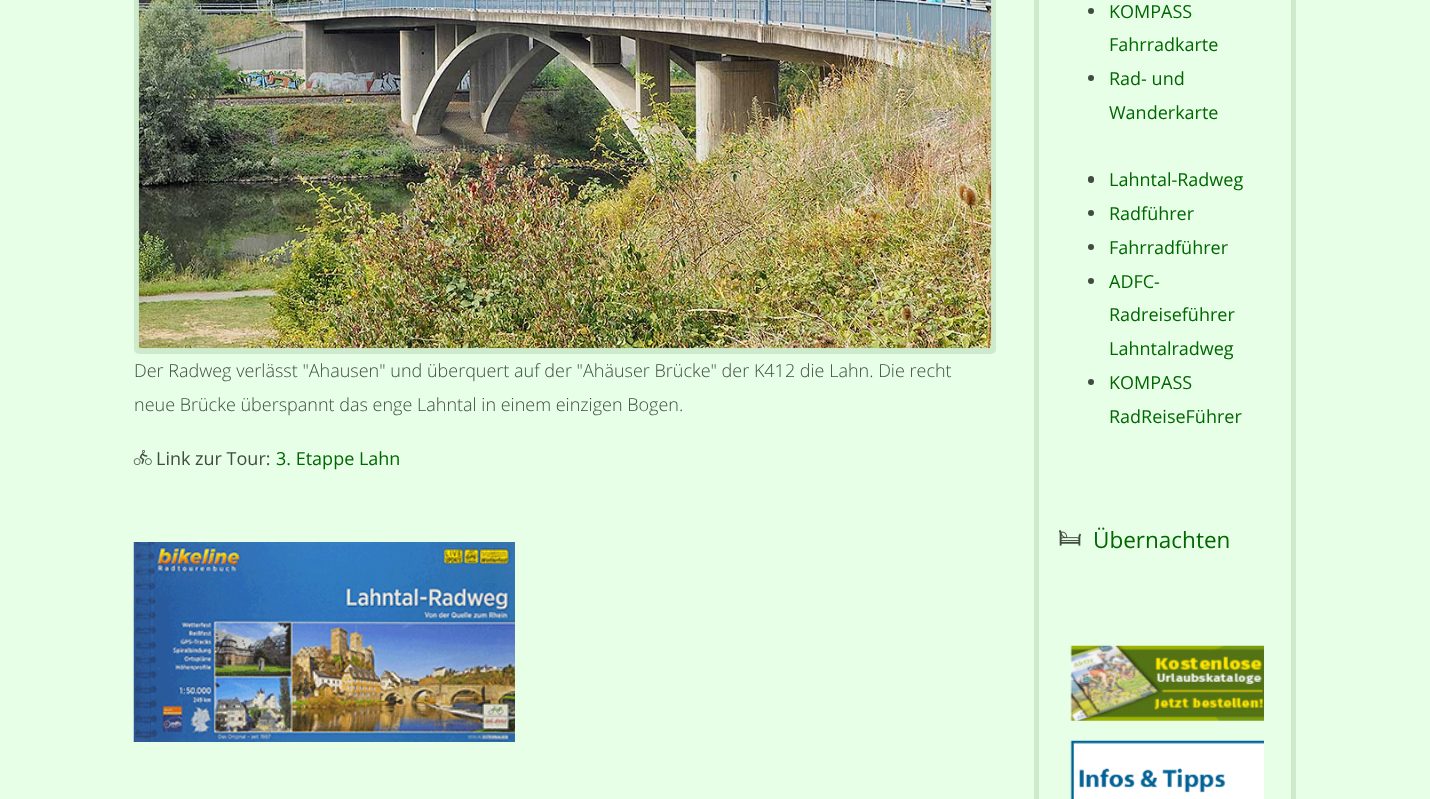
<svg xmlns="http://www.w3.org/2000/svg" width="1430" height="799">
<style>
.a{font:300 18px Open Sans;fill:#414c41}
.b{font:18px Open Sans;fill:#414c41}
.c{font:18px Open Sans;fill:#060}
.d{font:22.5px Open Sans;fill:#060}
</style>
<rect width="100%" height="100%" fill="#e7ffe7"/>
<rect fill="#cdeacc" x="134" y="-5" width="862" height="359" rx="5"/>
<image href="1.png" x="138" y="0" width="854" height="349"/>
<image href="2.png" x="133" y="450" width="19" height="15"/>
<image href="3.png" x="133" y="542" width="382" height="200"/>
<path fill="none" stroke="#cdeacc" stroke-width="5" d="M1036.5 -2.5h257v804H1036.5z"/>
<circle fill="#414c41" cx="1091" cy="11" r="3"/>
<circle fill="#414c41" cx="1091" cy="78" r="3"/>
<rect fill="#414c41" x="1088" y="176" width="6" height="7" rx="3"/>
<circle fill="#414c41" cx="1091" cy="213" r="3"/>
<circle fill="#414c41" cx="1091" cy="247" r="3"/>
<circle fill="#414c41" cx="1091" cy="281" r="3"/>
<circle fill="#414c41" cx="1091" cy="382" r="3"/>
<image href="4.png" x="1058" y="529" width="24" height="17"/>
<image href="5.png" x="1070" y="645" width="194" height="154"/>
<text class="a" x="134" y="377">Der Radweg verlässt "Ahausen" und überquert auf der "Ahäuser Brücke" der K412 die Lahn. Die recht</text>
<text class="a" x="134" y="411">neue Brücke überspannt das enge Lahntal in einem einzigen Bogen.</text>
<text class="b" x="156" y="465">Link zur Tour:</text>
<text class="c" x="276" y="465">3. Etappe Lahn</text>
<text class="c" x="1109" y="18">KOMPASS</text>
<text class="c" x="1109" y="51">Fahrradkarte</text>
<text class="c" x="1109" y="85">Rad- und</text>
<text class="c" x="1109" y="119">Wanderkarte</text>
<text class="c" x="1109" y="186">Lahntal-Radweg</text>
<text class="c" x="1109" y="220">Radführer</text>
<text class="c" x="1109" y="254">Fahrradführer</text>
<text class="c" x="1109" y="288">ADFC-</text>
<text class="c" x="1109" y="321">Radreiseführer</text>
<text class="c" x="1109" y="355">Lahntalradweg</text>
<text class="c" x="1109" y="389">KOMPASS</text>
<text class="c" x="1109" y="423">RadReiseFührer</text>
<text class="d" x="1093" y="548">Übernachten</text>
</svg>
